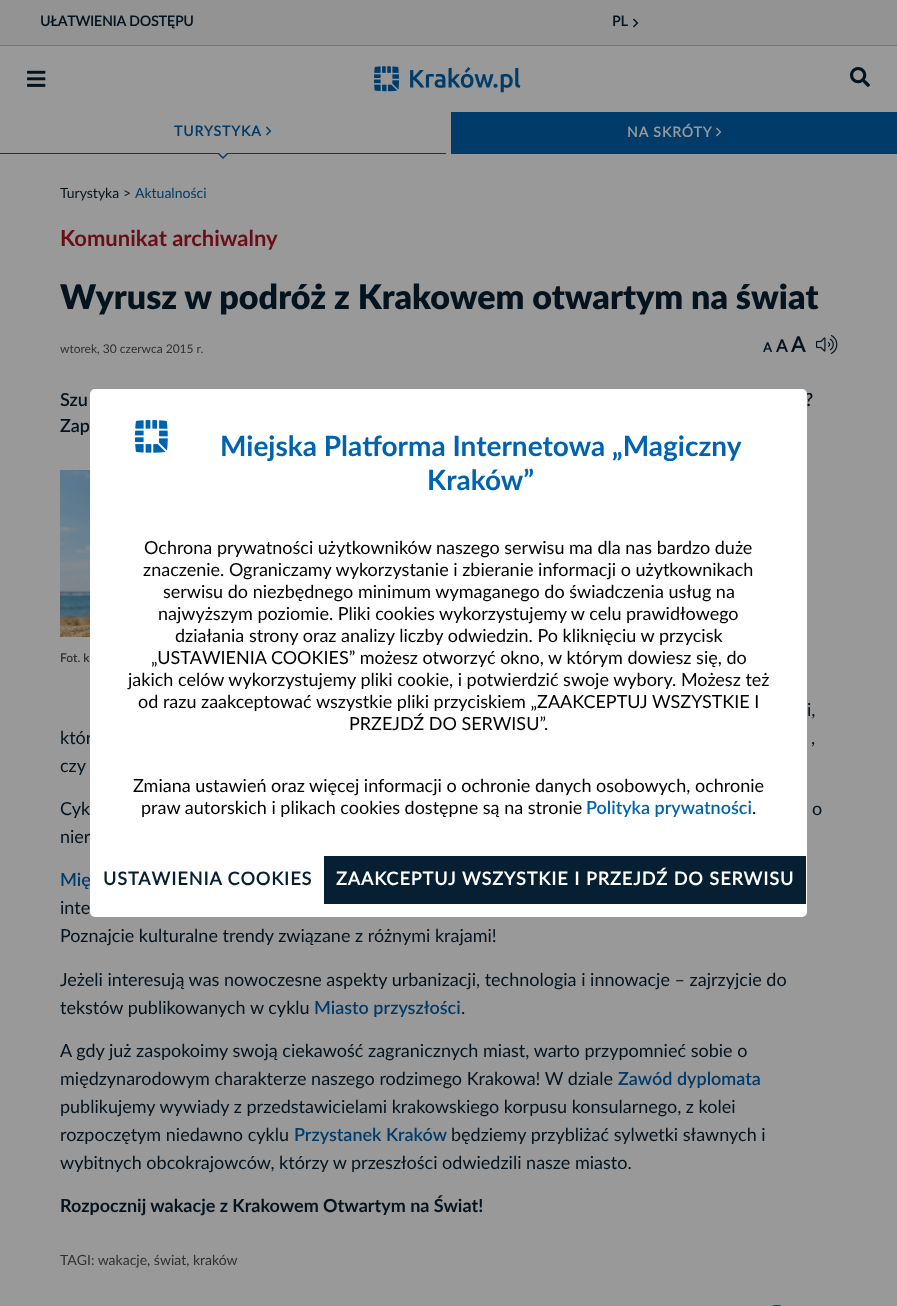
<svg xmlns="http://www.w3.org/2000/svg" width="897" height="1306">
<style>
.a{font:bold 14px 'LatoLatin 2';fill:#04131e}
.b{font:bold 14px 'LatoLatin 2';letter-spacing:1px;fill:#003b69}
.c{font:bold 14px 'LatoLatin 2';letter-spacing:1px;fill:#999}
.d{font:14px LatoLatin;fill:#04131e}
.e{font:14px LatoLatin;fill:#003b69}
.f{font:bold 22px LatoLatin;fill:#690e18}
.g{font:900 34px LatoLatin;fill:#04131e}
.h{font:12px LatoLatin;fill:#303030}
.i{font:bold 13px 'LatoLatin 2';fill:#04131e}
.j{font:bold 17px 'LatoLatin 2';fill:#04131e}
.k{font:bold 21px 'LatoLatin 2';fill:#04131e}
.l{font:600 18px LatoLatin;fill:#04131e}
.m{font:600 12px LatoLatin;fill:#303030}
.n{font:18px LatoLatin;fill:#04131e}
.o{font:600 18px LatoLatin;fill:#003b69}
.p{font:bold 18px LatoLatin;fill:#04131e}
.q{font:14px LatoLatin;fill:#303030}
.r{font:bold 28px LatoLatin;fill:#0063af}
.s{font:18px LatoLatin;fill:#000}
.t{font:600 18px LatoLatin;fill:#0063af}
.u{font:bold 18px 'LatoLatin 2';letter-spacing:1px;fill:#071f32}
.v{font:bold 18px 'LatoLatin 2';letter-spacing:1px;fill:#fff}
</style>
<rect width="100%" height="100%" fill="#999"/>
<path fill="#939393" d="M0 0h897v45H0z"/>
<path fill="#737373" d="M0 45h897v1H0z"/>
<image href="1.png" x="633" y="18" width="6" height="10"/>
<image href="2.png" x="27" y="70" width="19" height="17"/>
<image href="3.png" x="374" y="66" width="147" height="27"/>
<image href="4.png" x="850" y="67" width="20" height="20"/>
<path fill="#003b69" d="M0 153h446v1H0z"/>
<image href="5.png" x="266" y="126" width="6" height="10"/>
<path fill="#003b69" d="M217 153h12l-6 6z"/>
<path fill="#999" d="M217 151h12l-6 6z"/>
<path fill="#003b69" d="M451 112h446v42H451z"/>
<image href="6.png" x="716" y="127" width="6" height="10"/>
<image href="7.png" x="816" y="335" width="22" height="19"/>
<image href="8.png" x="60" y="470" width="30" height="167"/>
<image href="9.png" x="772" y="1305" width="9" height="1"/>
<text class="a" x="40" y="26">UŁATWIENIA DOSTĘPU</text>
<text class="a" x="612" y="26">PL</text>
<text class="b" x="174" y="136">TURYSTYKA</text>
<text class="c" x="627" y="137">NA SKRÓTY</text>
<text class="d" x="60" y="198">Turystyka</text>
<text class="d" x="123" y="198">&gt;</text>
<text class="e" x="135" y="198">Aktualności</text>
<text class="f" x="60" y="246">Komunikat archiwalny</text>
<text class="g" x="60" y="309">Wyrusz w podróż z Krakowem otwartym na świat</text>
<text class="h" x="60" y="353">wtorek, 30 czerwca 2015 r.</text>
<text class="i" x="763" y="352">A</text>
<text class="j" x="776" y="352">A</text>
<text class="k" x="791" y="352">A</text>
<text class="l" x="60" y="406">Szu</text>
<text class="l" x="805" y="406">?</text>
<text class="l" x="60" y="432">Zap</text>
<text class="m" x="60" y="662">Fot. k</text>
<text class="n" x="807" y="716">i,</text>
<text class="n" x="60" y="744">któr</text>
<text class="n" x="811" y="744">,</text>
<text class="n" x="60" y="772">czy</text>
<text class="n" x="60" y="815">Cyk</text>
<text class="n" x="812" y="815">o</text>
<text class="n" x="60" y="843">nier</text>
<text class="o" x="60" y="886">Mię</text>
<text class="n" x="60" y="914">inte</text>
<text class="n" x="60" y="942">Poznajcie kulturalne trendy związane z różnymi krajami!</text>
<text class="n" x="60" y="986">Jeżeli interesują was nowoczesne aspekty urbanizacji, technologia i innowacje – zajrzyjcie do</text>
<text class="n" x="60" y="1014">tekstów publikowanych w cyklu</text>
<text class="o" x="314" y="1014">Miasto przyszłości</text>
<text class="n" x="461" y="1014">.</text>
<text class="n" x="60" y="1057">A gdy już zaspokoimy swoją ciekawość zagranicznych miast, warto przypomnieć sobie o</text>
<text class="n" x="60" y="1085">międzynarodowym charakterze naszego rodzimego Krakowa! W dziale</text>
<text class="o" x="618" y="1085">Zawód dyplomata</text>
<text class="n" x="60" y="1113">publikujemy wywiady z przedstawicielami krakowskiego korpusu konsularnego, z kolei</text>
<text class="n" x="60" y="1141">rozpoczętym niedawno cyklu</text>
<text class="o" x="294" y="1141">Przystanek Kraków</text>
<text class="n" x="451" y="1141">będziemy przybliżać sylwetki sławnych i</text>
<text class="n" x="60" y="1169">wybitnych obcokrajowców, którzy w przeszłości odwiedzili nasze miasto.</text>
<text class="p" x="60" y="1212">Rozpocznij wakacje z Krakowem Otwartym na Świat!</text>
<text class="q" x="60" y="1265">TAGI: wakacje, świat, kraków</text>
<rect fill="#fff" x="90" y="389" width="717" height="528" rx="5"/>
<image href="10.png" x="135" y="420" width="33" height="33"/>
<text class="r" x="220" y="456">Miejska Platforma Internetowa „Magiczny</text>
<text class="r" x="427" y="490">Kraków”</text>
<text class="s" x="144" y="554">Ochrona prywatności użytkowników naszego serwisu ma dla nas bardzo duże</text>
<text class="s" x="143" y="576">znaczenie. Ograniczamy wykorzystanie i zbieranie informacji o użytkownikach</text>
<text class="s" x="163" y="598">serwisu do niezbędnego minimum wymaganego do świadczenia usług na</text>
<text class="s" x="158" y="620">najwyższym poziomie. Pliki cookies wykorzystujemy w celu prawidłowego</text>
<text class="s" x="175" y="642">działania strony oraz analizy liczby odwiedzin. Po kliknięciu w przycisk</text>
<text class="s" x="151" y="664">„USTAWIENIA COOKIES” możesz otworzyć okno, w którym dowiesz się, do</text>
<text class="s" x="128" y="686">jakich celów wykorzystujemy pliki cookie, i potwierdzić swoje wybory. Możesz też</text>
<text class="s" x="138" y="708">od razu zaakceptować wszystkie pliki przyciskiem „ZAAKCEPTUJ WSZYSTKIE I</text>
<text class="s" x="349" y="730">PRZEJDŹ DO SERWISU”.</text>
<text class="s" x="133" y="792">Zmiana ustawień oraz więcej informacji o ochronie danych osobowych, ochronie</text>
<text class="s" x="141" y="814">praw autorskich i plikach cookies dostępne są na stronie</text>
<text class="t" x="586" y="814">Polityka prywatności</text>
<text class="s" x="752" y="814">.</text>
<text class="u" x="103" y="885">USTAWIENIA COOKIES</text>
<path fill="#071f32" d="M324 856h482v48H324z"/>
<text class="v" x="336" y="885">ZAAKCEPTUJ WSZYSTKIE I PRZEJDŹ DO SERWISU</text>
</svg>
